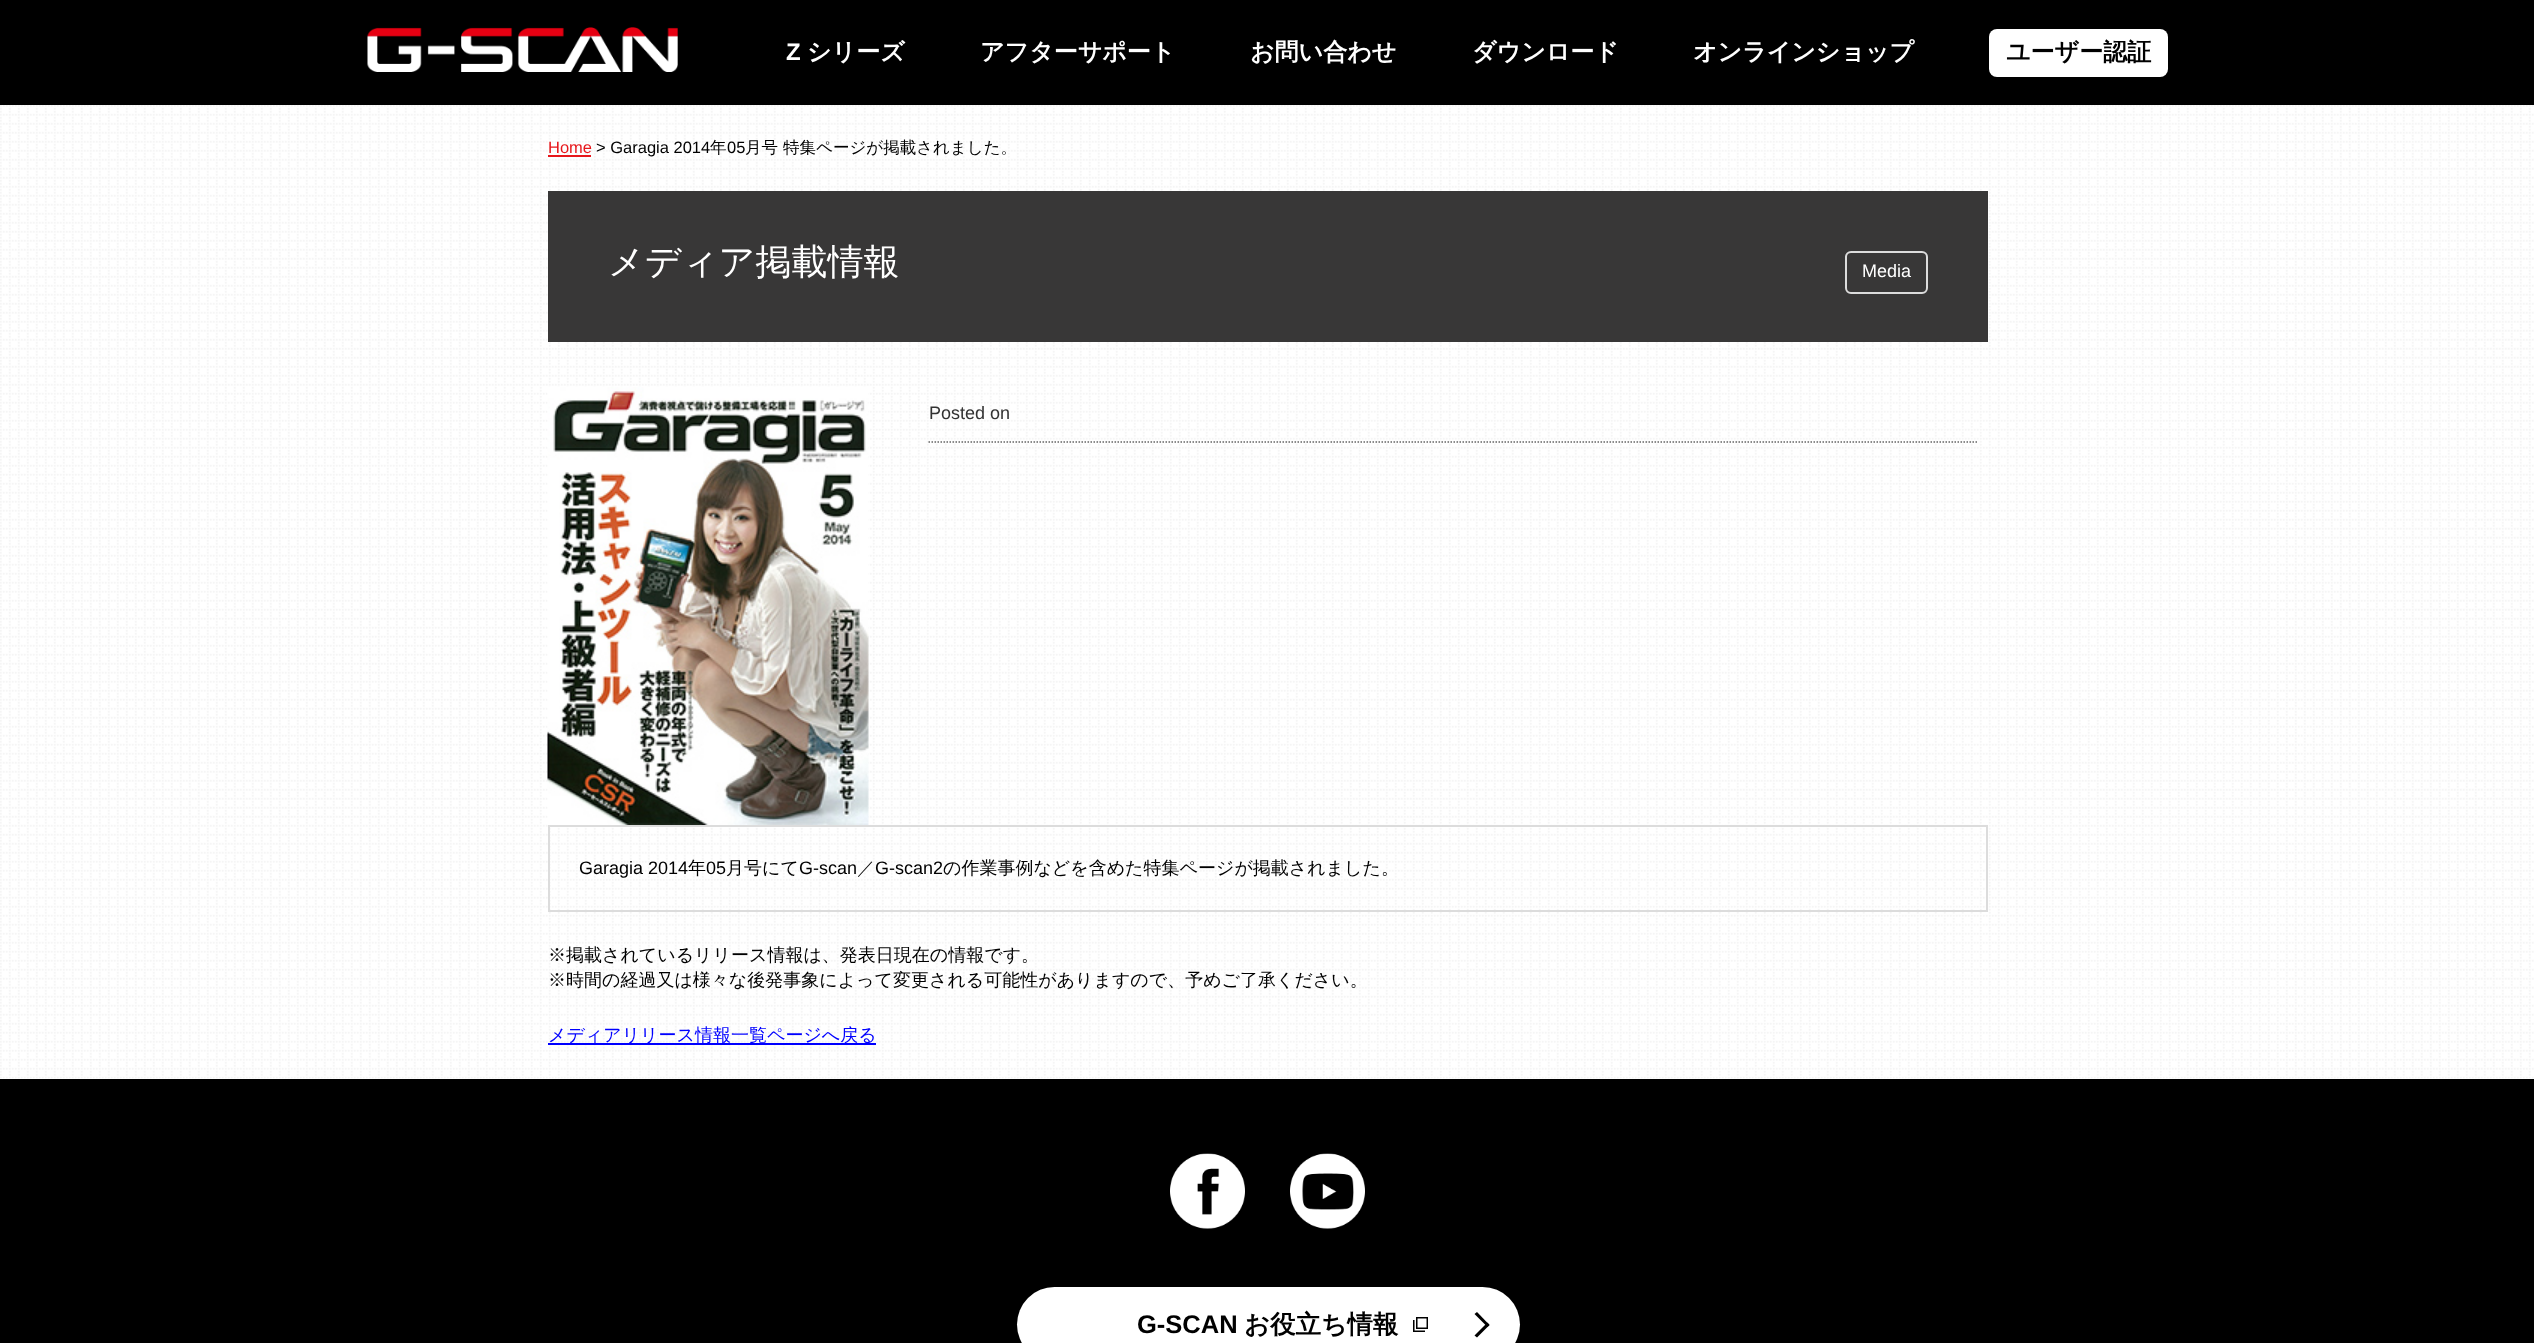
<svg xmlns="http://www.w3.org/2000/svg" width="2534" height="1343">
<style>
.a{font:bold 24px Liberation Sans;fill:#fff}
.b{font:bold 24px WenQuanYi Zen Hei;fill:#fff}
.c{font:bold 24px WenQuanYi Zen Hei;fill:#000}
.d{font:16.5px Liberation Sans;fill:#e7161a}
.e{font:16.5px Liberation Sans;fill:#000}
.f{font:500 16.5px WenQuanYi Zen Hei;fill:#000}
.g{font:500 36px WenQuanYi Zen Hei;fill:#fff}
.h{font:18px Liberation Sans;fill:#fff}
.i{font:18px Liberation Sans;fill:#333}
.j{font:18px Liberation Sans;fill:#000}
.k{font:500 18px WenQuanYi Zen Hei;fill:#000}
.l{font:500 18px WenQuanYi Zen Hei;fill:#00f}
.m{font:bold 25.5px Liberation Sans;fill:#000}
.n{font:bold 25.5px WenQuanYi Zen Hei;fill:#000}
</style>
<rect width="100%" height="100%" fill="#fff"/>
<path fill="#000" d="M0 0h2534v105H0z"/>
<image href="1.png" x="367" y="27" width="311" height="45"/>
<rect fill="#fff" x="1989" y="29" width="179" height="48" rx="8"/>
<image href="2.png" x="0" y="105" width="2534" height="974"/>
<path fill="#e7161a" d="M548 155h43v2H548z"/>
<path fill="#383737" d="M548 191h1440v151H548z"/>
<rect fill="none" stroke="#dcdcdc" stroke-width="2" x="1846" y="252" width="81" height="41" rx="5"/>
<image href="3.png" x="547" y="387" width="322" height="438"/>
<path fill="none" stroke="#666" stroke-width="1.5" stroke-dasharray="1.5 1.5" d="M928.5 442h1050"/>
<path fill="none" stroke="#dcdcdc" stroke-width="2" d="M549 826h1438v85H549z"/>
<path fill="#00f" d="M548 1043h328v2H548z"/>
<path fill="#000" d="M0 1079h2534v264H0z"/>
<image href="4.png" x="1170" y="1153" width="75" height="76"/>
<image href="5.png" x="1290" y="1153" width="75" height="76"/>
<rect fill="#fff" x="1017" y="1287" width="503" height="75" rx="37.5"/>
<image href="6.png" x="1413" y="1317" width="15" height="15"/>
<path fill="#000" d="M1474.5 1314l2.5-2l12.5 13l-2 2z"/>
<path fill="#000" d="M1474.5 1335.5l13-13l2 2.5l-12.5 12.5z"/>
<text class="a" x="786" y="60">Z</text>
<text class="b" x="807" y="60">シリーズ</text>
<text class="b" x="980" y="60">アフターサポート</text>
<text class="b" x="1250" y="60">お問い合わせ</text>
<text class="b" x="1472" y="60">ダウンロード</text>
<text class="b" x="1693" y="60">オンラインショップ</text>
<text class="c" x="2006" y="60">ユーザー認証</text>
<text class="d" x="548" y="153">Home</text>
<text class="e" x="596" y="153">&gt; Garagia 2014</text>
<text class="f" x="710" y="153">年</text>
<text class="e" x="727" y="153">05</text>
<text class="f" x="745" y="153">月号</text>
<text class="f" x="783" y="153">特集ページが掲載されました。</text>
<text class="g" x="608" y="274">メディア掲載情報</text>
<text class="h" x="1862" y="277">Media</text>
<text class="i" x="929" y="419">Posted on</text>
<text class="j" x="579" y="874">Garagia 2014</text>
<text class="k" x="688" y="874">年</text>
<text class="j" x="706" y="874">05</text>
<text class="k" x="726" y="874">月号にて</text>
<text class="j" x="799" y="874">G-scan</text>
<text class="k" x="857" y="874">／</text>
<text class="j" x="875" y="874">G-scan2</text>
<text class="k" x="943" y="874">の作業事例などを含めた特集ページが掲載されました。</text>
<text class="k" x="548" y="961">※掲載されているリリース情報は、発表日現在の情報です。</text>
<text class="k" x="548" y="986">※時間の経過又は様々な後発事象によって変更される可能性がありますので、予めご了承ください。</text>
<text class="l" x="548" y="1041">メディアリリース情報一覧ページへ戻る</text>
<text class="m" x="1137" y="1333">G-SCAN</text>
<text class="n" x="1244" y="1333">お役立ち情報</text>
</svg>
